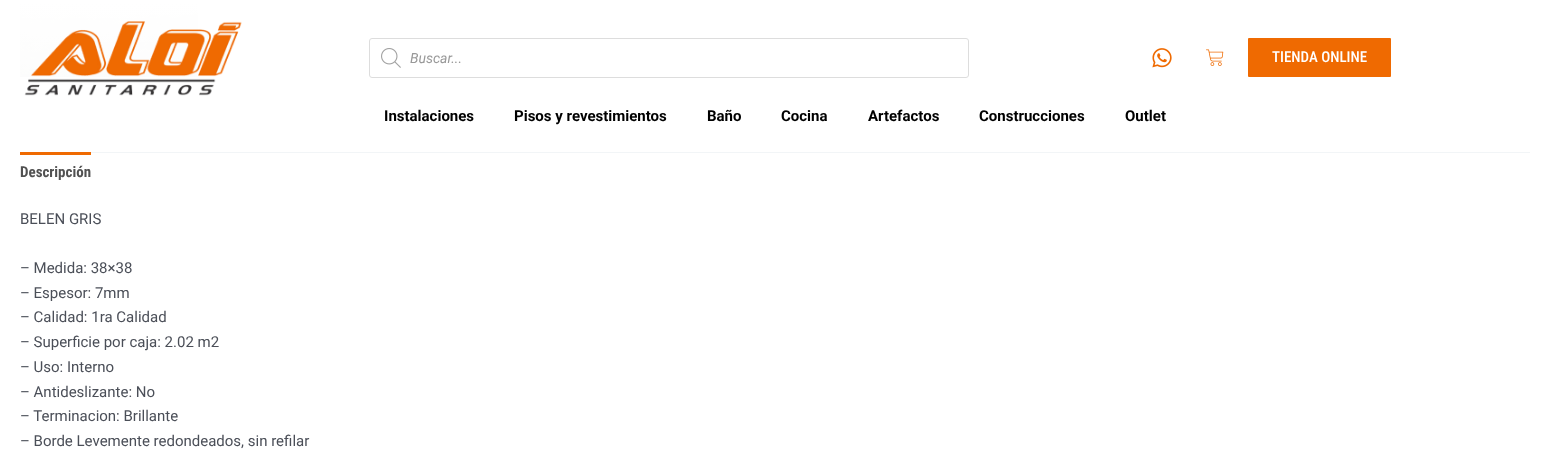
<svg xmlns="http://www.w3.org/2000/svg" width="1550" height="452">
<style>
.a{font:italic 14px Roboto;fill:#999}
.b{font:500 15px Roboto Condensed;fill:#fff}
.c{font:bold 15px Roboto;fill:#000}
.d{font:bold 15px Roboto Condensed;fill:#515151}
.e{font:15px Roboto;fill:#4b4f58}
</style>
<defs>
<linearGradient id="g1" gradientUnits="userSpaceOnUse" x1="775" y1="0" x2="775" y2="136"><stop offset="0.01" stop-color="#fff"/><stop offset="1" stop-color="#fff" stop-opacity="0"/></linearGradient>
</defs>
<rect width="100%" height="100%" fill="#fff"/>
<image href="5.png" x="20" y="2" width="178" height="75"/>
<path fill="url(#g1)" d="M20 2h178v75H20z"/>
<image href="1.png" x="24" y="21" width="218" height="75"/>
<rect fill="none" stroke="#ddd" x="369.5" y="38.5" width="599" height="39" rx="2.5"/>
<image href="2.png" x="381" y="48" width="20" height="20"/>
<image href="3.png" x="1152" y="48" width="20" height="20"/>
<image href="4.png" x="1206" y="49" width="18" height="17"/>
<rect fill="#ef6a01" x="1248" y="38" width="143" height="39" rx="1"/>
<path fill="#f2f5f7" d="M91 152h1439v1H91z"/>
<path fill="#ef6a01" d="M20 152h71v3H20z"/>
<text class="a" x="410" y="63">Buscar...</text>
<text class="b" x="1272" y="62">TIENDA ONLINE</text>
<text class="c" x="384" y="121">Instalaciones</text>
<text class="c" x="514" y="121">Pisos y revestimientos</text>
<text class="c" x="707" y="121">Baño</text>
<text class="c" x="781" y="121">Cocina</text>
<text class="c" x="868" y="121">Artefactos</text>
<text class="c" x="979" y="121">Construcciones</text>
<text class="c" x="1125" y="121">Outlet</text>
<text class="d" x="20" y="177">Descripción</text>
<text class="e" x="20" y="224">BELEN GRIS</text>
<text class="e" x="20" y="273">– Medida: 38×38</text>
<text class="e" x="20" y="298">– Espesor: 7mm</text>
<text class="e" x="20" y="322">– Calidad: 1ra Calidad</text>
<text class="e" x="20" y="347">– Superficie por caja: 2.02 m2</text>
<text class="e" x="20" y="372">– Uso: Interno</text>
<text class="e" x="20" y="397">– Antideslizante: No</text>
<text class="e" x="20" y="421">– Terminacion: Brillante</text>
<text class="e" x="20" y="446">– Borde Levemente redondeados, sin refilar</text>
</svg>
